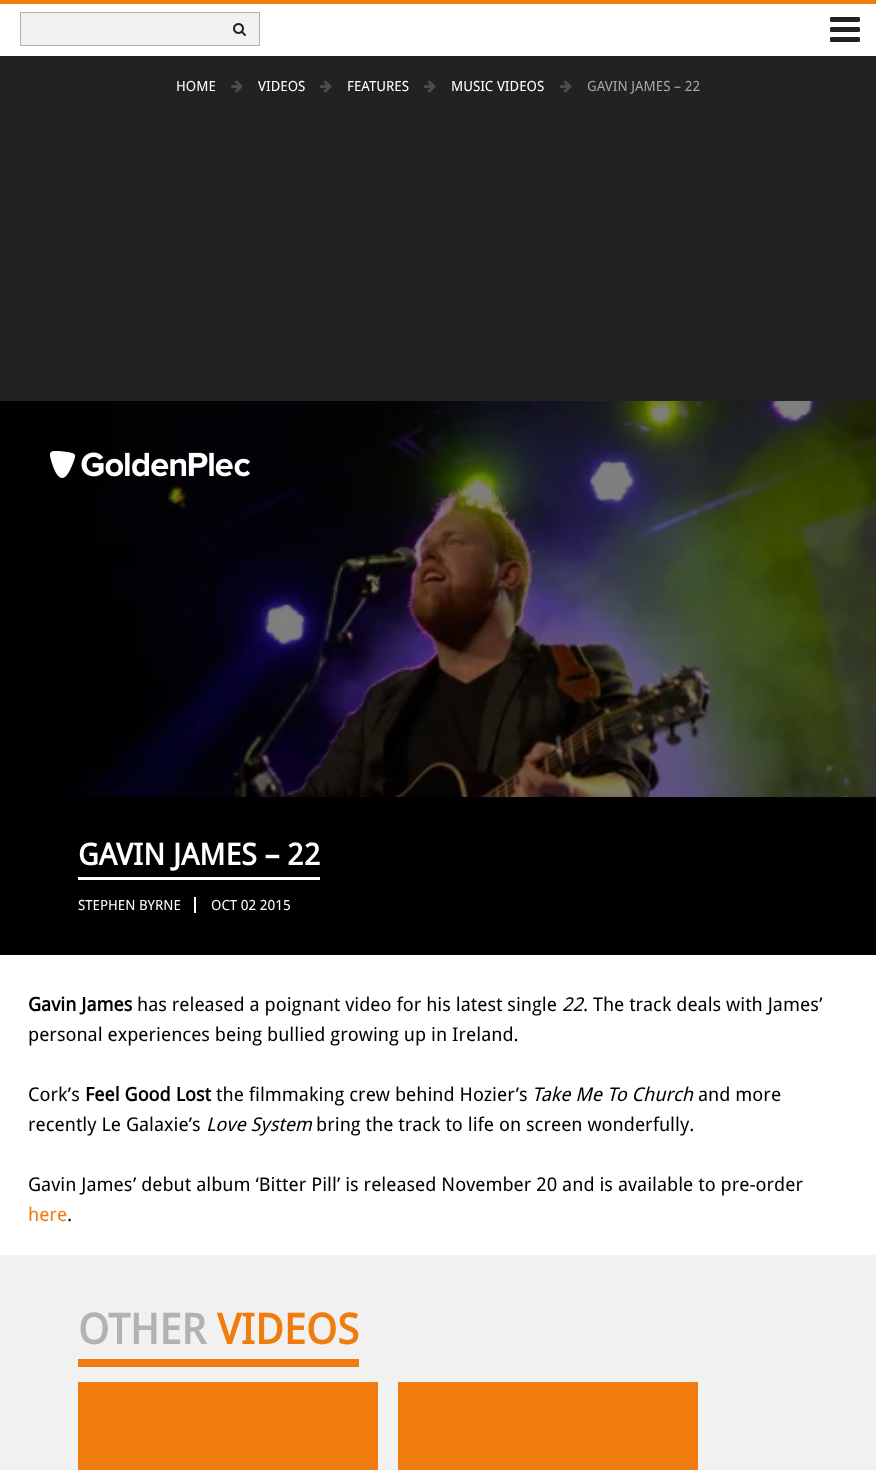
<svg xmlns="http://www.w3.org/2000/svg" width="876" height="1470">
<style>
.a{font:14px Droid Sans;fill:#fff}
.b{font:14px Droid Sans;fill:#a5a5a5}
.c{font:bold 30px Droid Sans;fill:#fff}
.d{font:bold 19px Droid Sans;fill:#000}
.e{font:19px Droid Sans;fill:#000}
.f{font:italic 19px Droid Sans;fill:#000}
.g{font:19px Droid Sans;fill:#f17c0e}
.h{font:bold 42px Droid Sans;fill:#b2b2b2}
.i{font:bold 42px Droid Sans;fill:#f17c0e}
</style>
<rect width="100%" height="100%" fill="#fff"/>
<path fill="#f17c0e" d="M0 0h876v4H0z"/>
<path fill="#f1f1f1" d="M21 13h238v32H21z"/>
<path fill="#b2b2b2" d="M20 12h240v1H20z"/>
<path fill="#b2b2b2" d="M20 45h200v1H20z"/>
<path fill="#b2b2b2" d="M20 12h1v34H20z"/>
<path fill="#b2b2b2" d="M259 12h1v34H259z"/>
<path fill="#b2b2b2" d="M220 45h40v1H220z"/>
<image href="1.png" x="233" y="23" width="13" height="13"/>
<image href="2.png" x="830" y="17" width="30" height="25"/>
<path fill="#222223" d="M0 56h876v345H0z"/>
<image href="3.png" x="231" y="80" width="12" height="13"/>
<image href="3.png" x="320" y="80" width="12" height="13"/>
<image href="3.png" x="424" y="80" width="12" height="13"/>
<image href="3.png" x="560" y="80" width="12" height="13"/>
<image href="4.png" x="0" y="401" width="876" height="396"/>
<image href="5.png" x="50" y="451" width="200" height="27"/>
<path fill="#000" d="M0 797h876v158H0z"/>
<path fill="#fff" d="M78 877h242v3H78z"/>
<path fill="#fff" d="M194 897h2v16H194z"/>
<path fill="#f1f1f1" d="M0 1255h876v215H0z"/>
<path fill="#f17c0e" d="M78 1359h281v8H78z"/>
<path fill="#f17c0e" d="M78 1382h300v88H78z"/>
<path fill="#f17c0e" d="M398 1382h300v88H398z"/>
<text class="a" x="176" y="91">HOME</text>
<text class="a" x="258" y="91">VIDEOS</text>
<text class="a" x="347" y="91">FEATURES</text>
<text class="a" x="451" y="91">MUSIC VIDEOS</text>
<text class="b" x="587" y="91">GAVIN JAMES – 22</text>
<text class="c" x="78" y="865">GAVIN JAMES – 22</text>
<text class="a" x="78" y="910">STEPHEN BYRNE</text>
<text class="a" x="211" y="910">OCT 02 2015</text>
<text class="d" x="28" y="1011">Gavin James</text>
<text class="e" x="137" y="1011">has released a poignant video for his latest single</text>
<text class="f" x="562" y="1011">22</text>
<text class="e" x="583" y="1011">. The track deals with James’</text>
<text class="e" x="28" y="1041">personal experiences being bullied growing up in Ireland.</text>
<text class="e" x="28" y="1101">Cork’s</text>
<text class="d" x="85" y="1101">Feel Good Lost</text>
<text class="e" x="216" y="1101">the filmmaking crew behind Hozier’s</text>
<text class="f" x="532" y="1101">Take Me To Church</text>
<text class="e" x="698" y="1101">and more</text>
<text class="e" x="28" y="1131">recently Le Galaxie’s</text>
<text class="f" x="206" y="1131">Love System</text>
<text class="e" x="316" y="1131">bring the track to life on screen wonderfully.</text>
<text class="e" x="28" y="1191">Gavin James’ debut album ‘Bitter Pill’ is released November 20 and is available to pre-order</text>
<text class="g" x="28" y="1221">here</text>
<text class="e" x="67" y="1221">.</text>
<text class="h" x="78" y="1344">OTHER</text>
<text class="i" x="217" y="1344">VIDEOS</text>
</svg>
